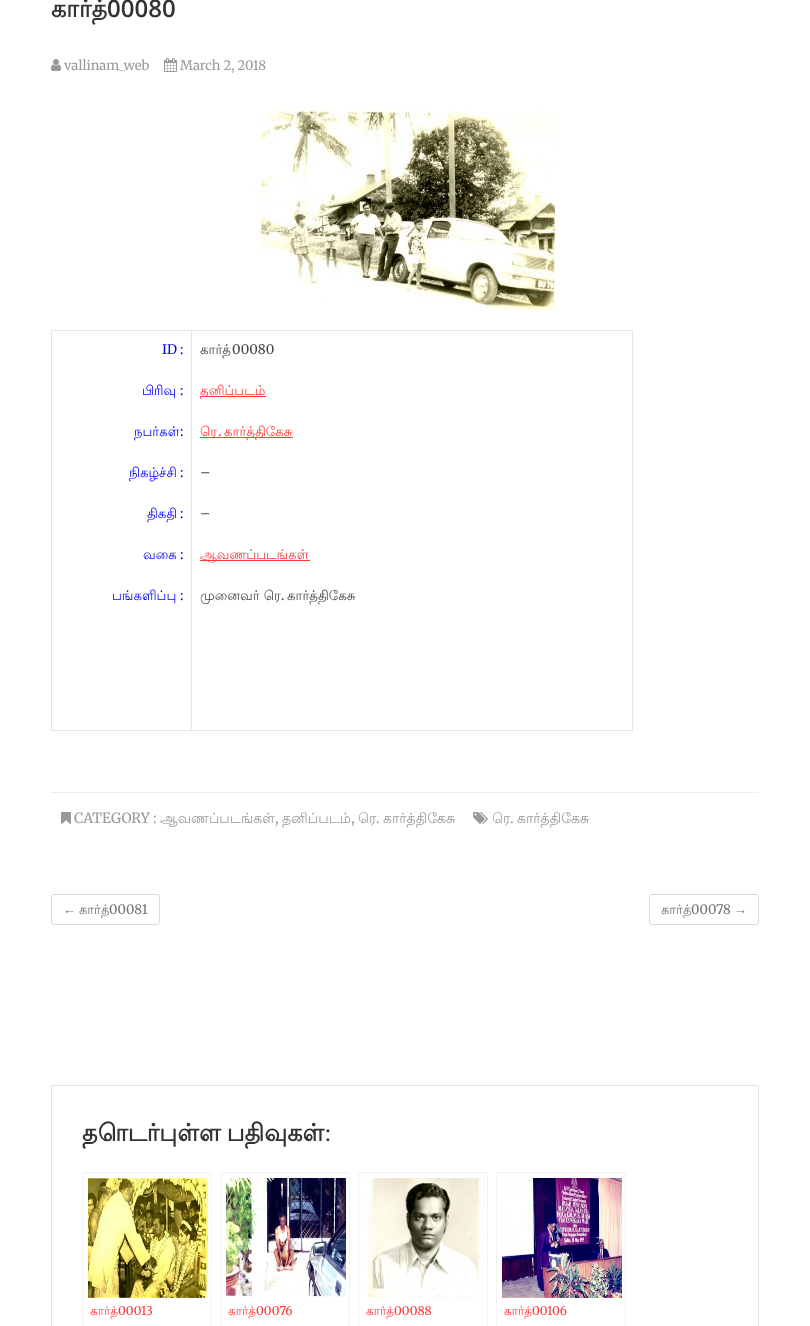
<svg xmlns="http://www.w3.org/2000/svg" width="810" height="1326">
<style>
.a{font:bold 24px Lohit Tamil;fill:#333}
.b{font:600 24px Open Sans;fill:#333}
.c{font:300 13px Merriweather;fill:#999}
.d{font:300 13.25px Merriweather;fill:#00f}
.e{font:13.25px Lohit Tamil;fill:#00f}
.f{font:13.25px Lohit Tamil;fill:#444}
.g{font:300 13.25px Merriweather;fill:#444}
.h{font:13.25px Lohit Tamil;fill:#ff3838}
.i{font:300 13.25px Merriweather;fill:#ff3838}
.j{font:300 14px Merriweather;fill:#999}
.k{font:14px Lohit Tamil;fill:#999}
.l{font:13px Liberation Sans;fill:#747474}
.m{font:13px Lohit Tamil;fill:#747474}
.n{font:300 13px Merriweather;fill:#747474}
.o{font:12px Lohit Tamil;fill:#ff3838}
.p{font:300 12px Merriweather;fill:#ff3838}
</style>
<rect width="100%" height="100%" fill="#fff"/>
<image href="1.png" x="51" y="59" width="10" height="12"/>
<image href="2.png" x="164" y="58" width="13" height="14"/>
<image href="3.png" x="255" y="111" width="300" height="199"/>
<path fill="#e6e6e6" d="M51 330h582v1h-581z"/>
<path fill="#0000001a" d="M51 731v-401l1 1v400z"/>
<path fill="#e6e6e6" d="M192 331v400l-1-1v-399z"/>
<path fill="#0000001a" d="M192 731h-140v-1h139z"/>
<path fill="#e6e6e6" d="M633 331v400l-1-1v-399z"/>
<path fill="#0000001a" d="M633 731h-441v-1h440z"/>
<path fill="#ff3838" d="M200 396h66v1H200z"/>
<path fill="#ff3838" d="M200 437h93v1H200z"/>
<path fill="#ff3838" d="M200 560h110v1H200z"/>
<path fill="none" stroke="#ddd" stroke-dasharray="1 1" d="M51 792.5h708"/>
<image href="4.png" x="61" y="812" width="10" height="12"/>
<image href="5.png" x="473" y="812" width="15" height="12"/>
<rect fill="none" stroke="#d9d9d9" x="51.5" y="894.5" width="108" height="30" rx="2.5"/>
<rect fill="none" stroke="#d9d9d9" x="649.5" y="894.5" width="109" height="30" rx="2.5"/>
<path fill="none" stroke="#e4e4e4" d="M51.5 1085.5h707v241H51.5z"/>
<path fill="none" stroke="#f2f2f2" d="M82.5 1172.5h129v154H82.5z"/>
<image href="6.png" x="88" y="1178" width="120" height="120"/>
<path fill="none" stroke="#f2f2f2" d="M220.5 1172.5h129v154H220.5z"/>
<image href="7.png" x="226" y="1178" width="120" height="120"/>
<path fill="none" stroke="#f2f2f2" d="M358.5 1172.5h129v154H358.5z"/>
<image href="8.png" x="365" y="1178" width="119" height="120"/>
<path fill="none" stroke="#f2f2f2" d="M496.5 1172.5h129v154H496.5z"/>
<image href="9.png" x="502" y="1178" width="120" height="120"/>
<text class="a" x="51" y="17">கார்த்</text>
<text class="b" x="107" y="17">00080</text>
<text class="c" x="64" y="70">vallinam_web</text>
<text class="c" x="180" y="70">March 2, 2018</text>
<text class="d" x="162" y="354">ID :</text>
<text class="e" x="142" y="395">பிரிவு</text>
<text class="d" x="180" y="395">:</text>
<text class="e" x="134" y="436">நபர்கள்</text>
<text class="d" x="180" y="436">:</text>
<text class="e" x="129" y="477">நிகழ்ச்சி</text>
<text class="d" x="180" y="477">:</text>
<text class="e" x="147" y="518">திகதி</text>
<text class="d" x="180" y="518">:</text>
<text class="e" x="143" y="559">வகை</text>
<text class="d" x="180" y="559">:</text>
<text class="e" x="112" y="600">பங்களிப்பு</text>
<text class="d" x="180" y="600">:</text>
<text class="f" x="200" y="354">கார்த்</text>
<text class="g" x="232" y="354">00080</text>
<text class="h" x="200" y="395">தனிப்படம்</text>
<text class="h" x="200" y="436">ரெ</text>
<text class="i" x="218" y="436">.</text>
<text class="h" x="224" y="436">கார்த்திகேசு</text>
<text class="g" x="200" y="477">–</text>
<text class="g" x="200" y="518">–</text>
<text class="h" x="200" y="559">ஆவணப்படங்கள்</text>
<text class="f" x="200" y="600">முனைவர் ரெ</text>
<text class="g" x="281" y="600">.</text>
<text class="f" x="287" y="600">கார்த்திகேசு</text>
<text class="j" x="74" y="823">CATEGORY :</text>
<text class="k" x="160" y="823">ஆவணப்படங்கள்</text>
<text class="j" x="275" y="823">,</text>
<text class="k" x="282" y="823">தனிப்படம்</text>
<text class="j" x="351" y="823">,</text>
<text class="k" x="358" y="823">ரெ</text>
<text class="j" x="376" y="823">.</text>
<text class="k" x="383" y="823">கார்த்திகேசு</text>
<text class="k" x="492" y="823">ரெ</text>
<text class="j" x="510" y="823">.</text>
<text class="k" x="517" y="823">கார்த்திகேசு</text>
<text class="l" x="63" y="914">←</text>
<text class="m" x="79" y="914">கார்த்</text>
<text class="n" x="109" y="914">00081</text>
<text class="m" x="661" y="914">கார்த்</text>
<text class="n" x="691" y="914">00078</text>
<text class="l" x="734" y="914">→</text>
<text class="a" x="82" y="1141" word-spacing="-1">தொடர்புள்ள பதிவுகள்:</text>
<text class="o" x="90" y="1315">கார்த்</text>
<text class="p" x="118" y="1315">00013</text>
<text class="o" x="228" y="1315">கார்த்</text>
<text class="p" x="256" y="1315">00076</text>
<text class="o" x="366" y="1315">கார்த்</text>
<text class="p" x="394" y="1315">00088</text>
<text class="o" x="504" y="1315">கார்த்</text>
<text class="p" x="532" y="1315">00106</text>
</svg>
